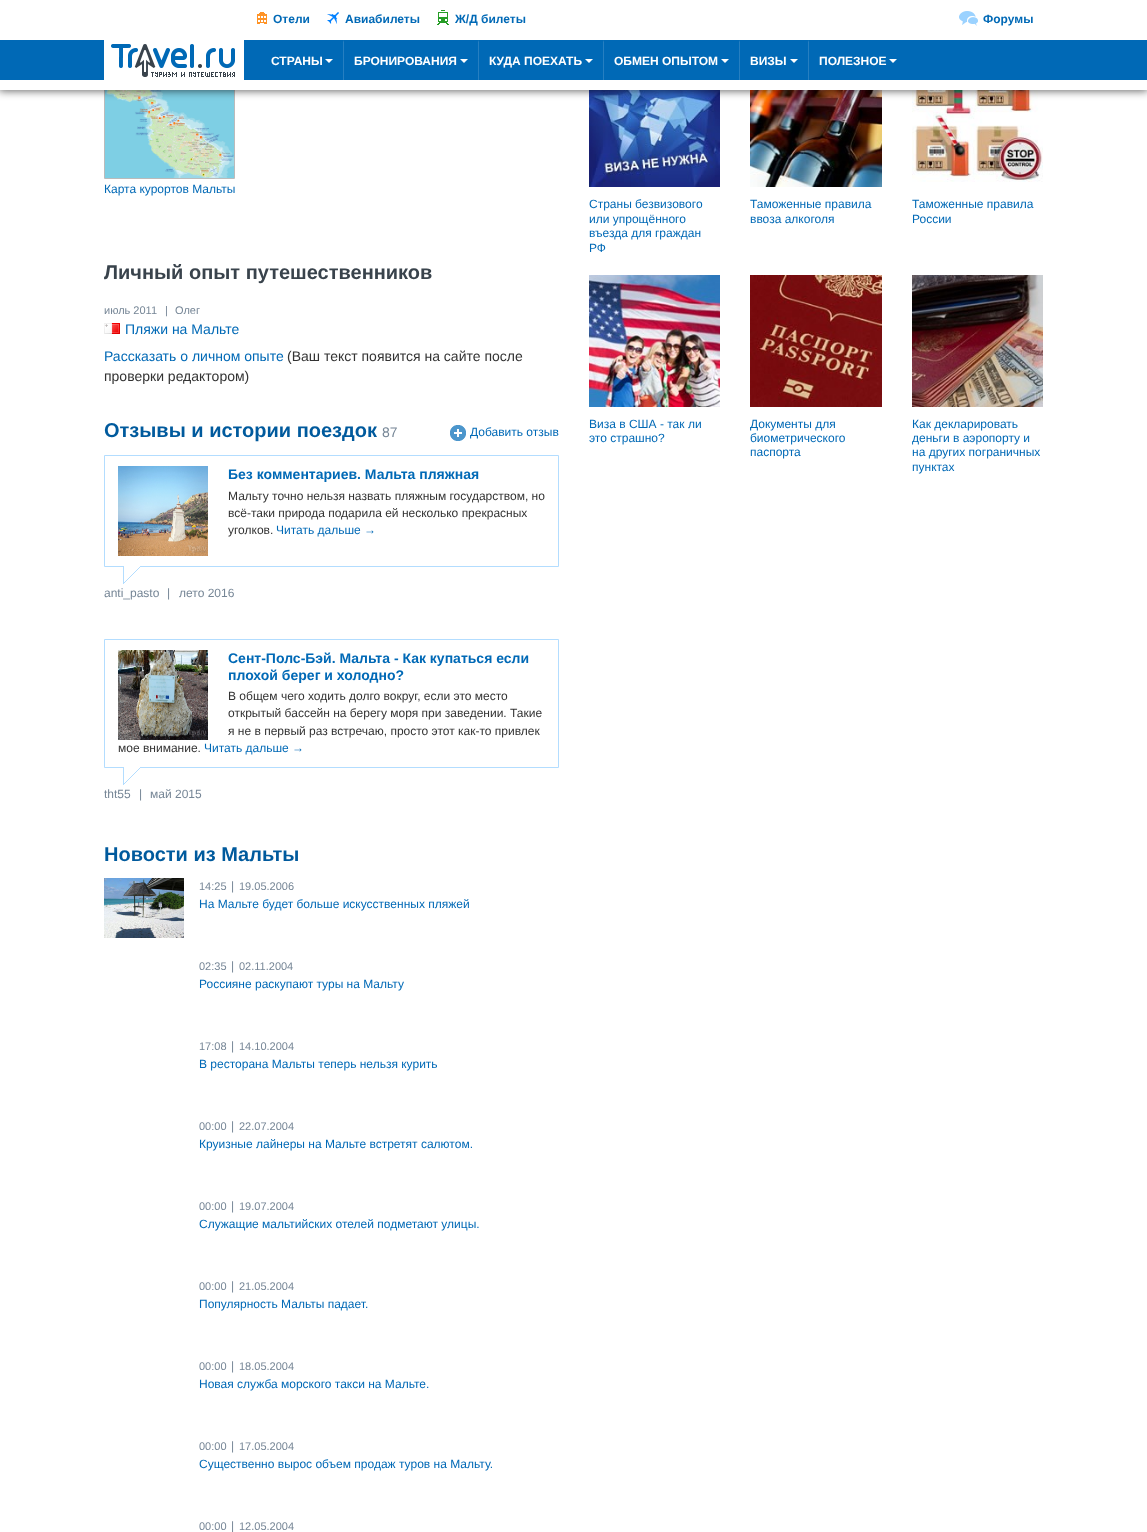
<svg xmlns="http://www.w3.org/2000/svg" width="1147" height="1532">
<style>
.a{font:bold 12px Liberation Sans;fill:#0069b6}
.b{font:bold 12px Liberation Sans;fill:#fff}
.c{font:12px Liberation Sans;fill:#0069b6}
.d{font:bold 20px Liberation Sans;fill:#39434c}
.e{font:11px Liberation Sans;fill:#768696}
.f{font:14px Liberation Sans;fill:#0069b6}
.g{font:14px Liberation Sans;fill:#333}
.h{font:bold 20px Liberation Sans;fill:#005a9d}
.i{font:14px Liberation Sans;fill:#768696}
.j{font:bold 14px Liberation Sans;fill:#0069b6}
.k{font:12px Liberation Sans;fill:#333}
.l{font:12px Liberation Sans;fill:#768696}
</style>
<defs>
<clipPath id="clip1"><path d="M104 258h455v28H104z"/></clipPath>
</defs>
<rect width="100%" height="100%" fill="#fff"/>
<path fill="none" stroke="#bbb" d="M104.5 72.5h130v106H104.5z"/>
<image href="6.png" x="105" y="90" width="129" height="88"/>
<image href="13.png" x="589" y="90" width="131" height="97"/>
<image href="14.png" x="750" y="90" width="132" height="97"/>
<image href="15.png" x="912" y="90" width="131" height="92"/>
<path fill="#00000099" filter="blur(4px)" d="M-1 -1h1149v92H-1z"/>
<path fill="#fff" d="M0 0h1147v90H0z"/>
<image href="1.png" x="257" y="12" width="10" height="12"/>
<image href="2.png" x="327" y="12" width="12" height="12"/>
<image href="3.png" x="437" y="10" width="12" height="15"/>
<image href="4.png" x="959" y="11" width="19" height="15"/>
<path fill="#0069b6" d="M0 40h1147v40H0z"/>
<path fill="#fff" d="M104 40h140v40H104z"/>
<image href="5.png" x="111" y="44" width="124" height="33"/>
<path fill="#fff" d="M325 59h8l-4 4z"/>
<path fill="#267fc1" d="M343 80v-40l1 2v38z"/>
<path fill="#fff" d="M460 59h8l-4 4z"/>
<path fill="#267fc1" d="M478 80v-40l1 2v38z"/>
<path fill="#fff" d="M585 59h8l-4 4z"/>
<path fill="#267fc1" d="M603 80v-40l1 2v38z"/>
<path fill="#fff" d="M721 59h8l-4 4z"/>
<path fill="#267fc1" d="M739 80v-40l1 2v38z"/>
<path fill="#fff" d="M790 59h8l-4 4z"/>
<path fill="#267fc1" d="M808 80v-40l1 2v38z"/>
<path fill="#fff" d="M889 59h8l-4 4z"/>
<image href="7.png" x="104" y="323" width="16" height="11"/>
<image href="8.png" x="450" y="425" width="16" height="16"/>
<path fill="none" stroke="#b3ddff" d="M104.5 455.5h454v111H104.5z"/>
<image href="9.png" x="118" y="466" width="90" height="90"/>
<image href="10.png" x="123" y="566" width="17" height="18"/>
<path fill="none" stroke="#b3ddff" d="M104.5 639.5h454v128H104.5z"/>
<image href="11.png" x="118" y="650" width="90" height="90"/>
<image href="10.png" x="123" y="767" width="17" height="18"/>
<image href="12.png" x="104" y="878" width="80" height="60"/>
<image href="16.png" x="589" y="275" width="131" height="132"/>
<image href="17.png" x="750" y="275" width="132" height="132"/>
<image href="18.png" x="912" y="275" width="131" height="132"/>
<text class="a" x="273" y="23">Отели</text>
<text class="a" x="345" y="23">Авиабилеты</text>
<text class="a" x="455" y="23">Ж/Д билеты</text>
<text class="a" x="983" y="23">Форумы</text>
<text class="b" x="271" y="65">СТРАНЫ</text>
<text class="b" x="354" y="65">БРОНИРОВАНИЯ</text>
<text class="b" x="489" y="65">КУДА ПОЕХАТЬ</text>
<text class="b" x="614" y="65">ОБМЕН ОПЫТОМ</text>
<text class="b" x="750" y="65">ВИЗЫ</text>
<text class="b" x="819" y="65">ПОЛЕЗНОЕ</text>
<text class="c" x="104" y="193">Карта курортов Мальты</text>
<g clip-path="url(#clip1)">
<text class="d" x="104" y="279">Личный опыт путешественников</text>
</g>
<text class="e" x="104" y="314">июль 2011</text>
<text class="e" x="165" y="314">|</text>
<text class="e" x="175" y="314">Олег</text>
<text class="f" x="125" y="334">Пляжи на Мальте</text>
<text class="f" x="104" y="361">Рассказать о личном опыте</text>
<text class="g" x="287" y="361">(Ваш текст появится на сайте после</text>
<text class="g" x="104" y="381">проверки редактором)</text>
<text class="h" x="104" y="437">Отзывы и истории поездок</text>
<text class="i" x="382" y="437">87</text>
<text class="c" x="470" y="436">Добавить отзыв</text>
<text class="j" x="228" y="479">Без комментариев. Мальта пляжная</text>
<text class="k" x="228" y="500">Мальту точно нельзя назвать пляжным государством, но</text>
<text class="k" x="228" y="517">всё-таки природа подарила ей несколько прекрасных</text>
<text class="k" x="228" y="534">уголков.</text>
<text class="c" x="276" y="534">Читать дальше →</text>
<text class="l" x="104" y="597">anti_pasto</text>
<text class="l" x="167" y="597">|</text>
<text class="l" x="179" y="597">лето 2016</text>
<text class="j" x="228" y="663">Сент-Полс-Бэй. Мальта - Как купаться если</text>
<text class="j" x="228" y="680">плохой берег и холодно?</text>
<text class="k" x="228" y="700">В общем чего ходить долго вокруг, если это место</text>
<text class="k" x="228" y="717">открытый бассейн на берегу моря при заведении. Такие</text>
<text class="k" x="228" y="735">я не в первый раз встречаю, просто этот как-то привлек</text>
<text class="k" x="118" y="752">мое внимание.</text>
<text class="c" x="204" y="752">Читать дальше →</text>
<text class="l" x="104" y="798">tht55</text>
<text class="l" x="139" y="798">|</text>
<text class="l" x="150" y="798">май 2015</text>
<text class="h" x="104" y="861">Новости из Мальты</text>
<text class="e" x="199" y="890">14:25</text>
<text class="l" x="231" y="890">|</text>
<text class="e" x="239" y="890">19.05.2006</text>
<text class="c" x="199" y="908">На Мальте будет больше искусственных пляжей</text>
<text class="e" x="199" y="970">02:35</text>
<text class="l" x="231" y="970">|</text>
<text class="e" x="239" y="970">02.11.2004</text>
<text class="c" x="199" y="988">Россияне раскупают туры на Мальту</text>
<text class="e" x="199" y="1050">17:08</text>
<text class="l" x="231" y="1050">|</text>
<text class="e" x="239" y="1050">14.10.2004</text>
<text class="c" x="199" y="1068">В ресторана Мальты теперь нельзя курить</text>
<text class="e" x="199" y="1130">00:00</text>
<text class="l" x="231" y="1130">|</text>
<text class="e" x="239" y="1130">22.07.2004</text>
<text class="c" x="199" y="1148">Круизные лайнеры на Мальте встретят салютом.</text>
<text class="e" x="199" y="1210">00:00</text>
<text class="l" x="231" y="1210">|</text>
<text class="e" x="239" y="1210">19.07.2004</text>
<text class="c" x="199" y="1228">Служащие мальтийских отелей подметают улицы.</text>
<text class="e" x="199" y="1290">00:00</text>
<text class="l" x="231" y="1290">|</text>
<text class="e" x="239" y="1290">21.05.2004</text>
<text class="c" x="199" y="1308">Популярность Мальты падает.</text>
<text class="e" x="199" y="1370">00:00</text>
<text class="l" x="231" y="1370">|</text>
<text class="e" x="239" y="1370">18.05.2004</text>
<text class="c" x="199" y="1388">Новая служба морского такси на Мальте.</text>
<text class="e" x="199" y="1450">00:00</text>
<text class="l" x="231" y="1450">|</text>
<text class="e" x="239" y="1450">17.05.2004</text>
<text class="c" x="199" y="1468">Существенно вырос объем продаж туров на Мальту.</text>
<text class="e" x="199" y="1530">00:00</text>
<text class="l" x="231" y="1530">|</text>
<text class="e" x="239" y="1530">12.05.2004</text>
<text class="c" x="589" y="208">Страны безвизового</text>
<text class="c" x="589" y="223">или упрощённого</text>
<text class="c" x="589" y="237">въезда для граждан</text>
<text class="c" x="589" y="252">РФ</text>
<text class="c" x="750" y="208">Таможенные правила</text>
<text class="c" x="750" y="223">ввоза алкоголя</text>
<text class="c" x="912" y="208">Таможенные правила</text>
<text class="c" x="912" y="223">России</text>
<text class="c" x="589" y="428">Виза в США - так ли</text>
<text class="c" x="589" y="442">это страшно?</text>
<text class="c" x="750" y="428">Документы для</text>
<text class="c" x="750" y="442">биометрического</text>
<text class="c" x="750" y="456">паспорта</text>
<text class="c" x="912" y="428">Как декларировать</text>
<text class="c" x="912" y="442">деньги в аэропорту и</text>
<text class="c" x="912" y="456">на других пограничных</text>
<text class="c" x="912" y="471">пунктах</text>
</svg>
